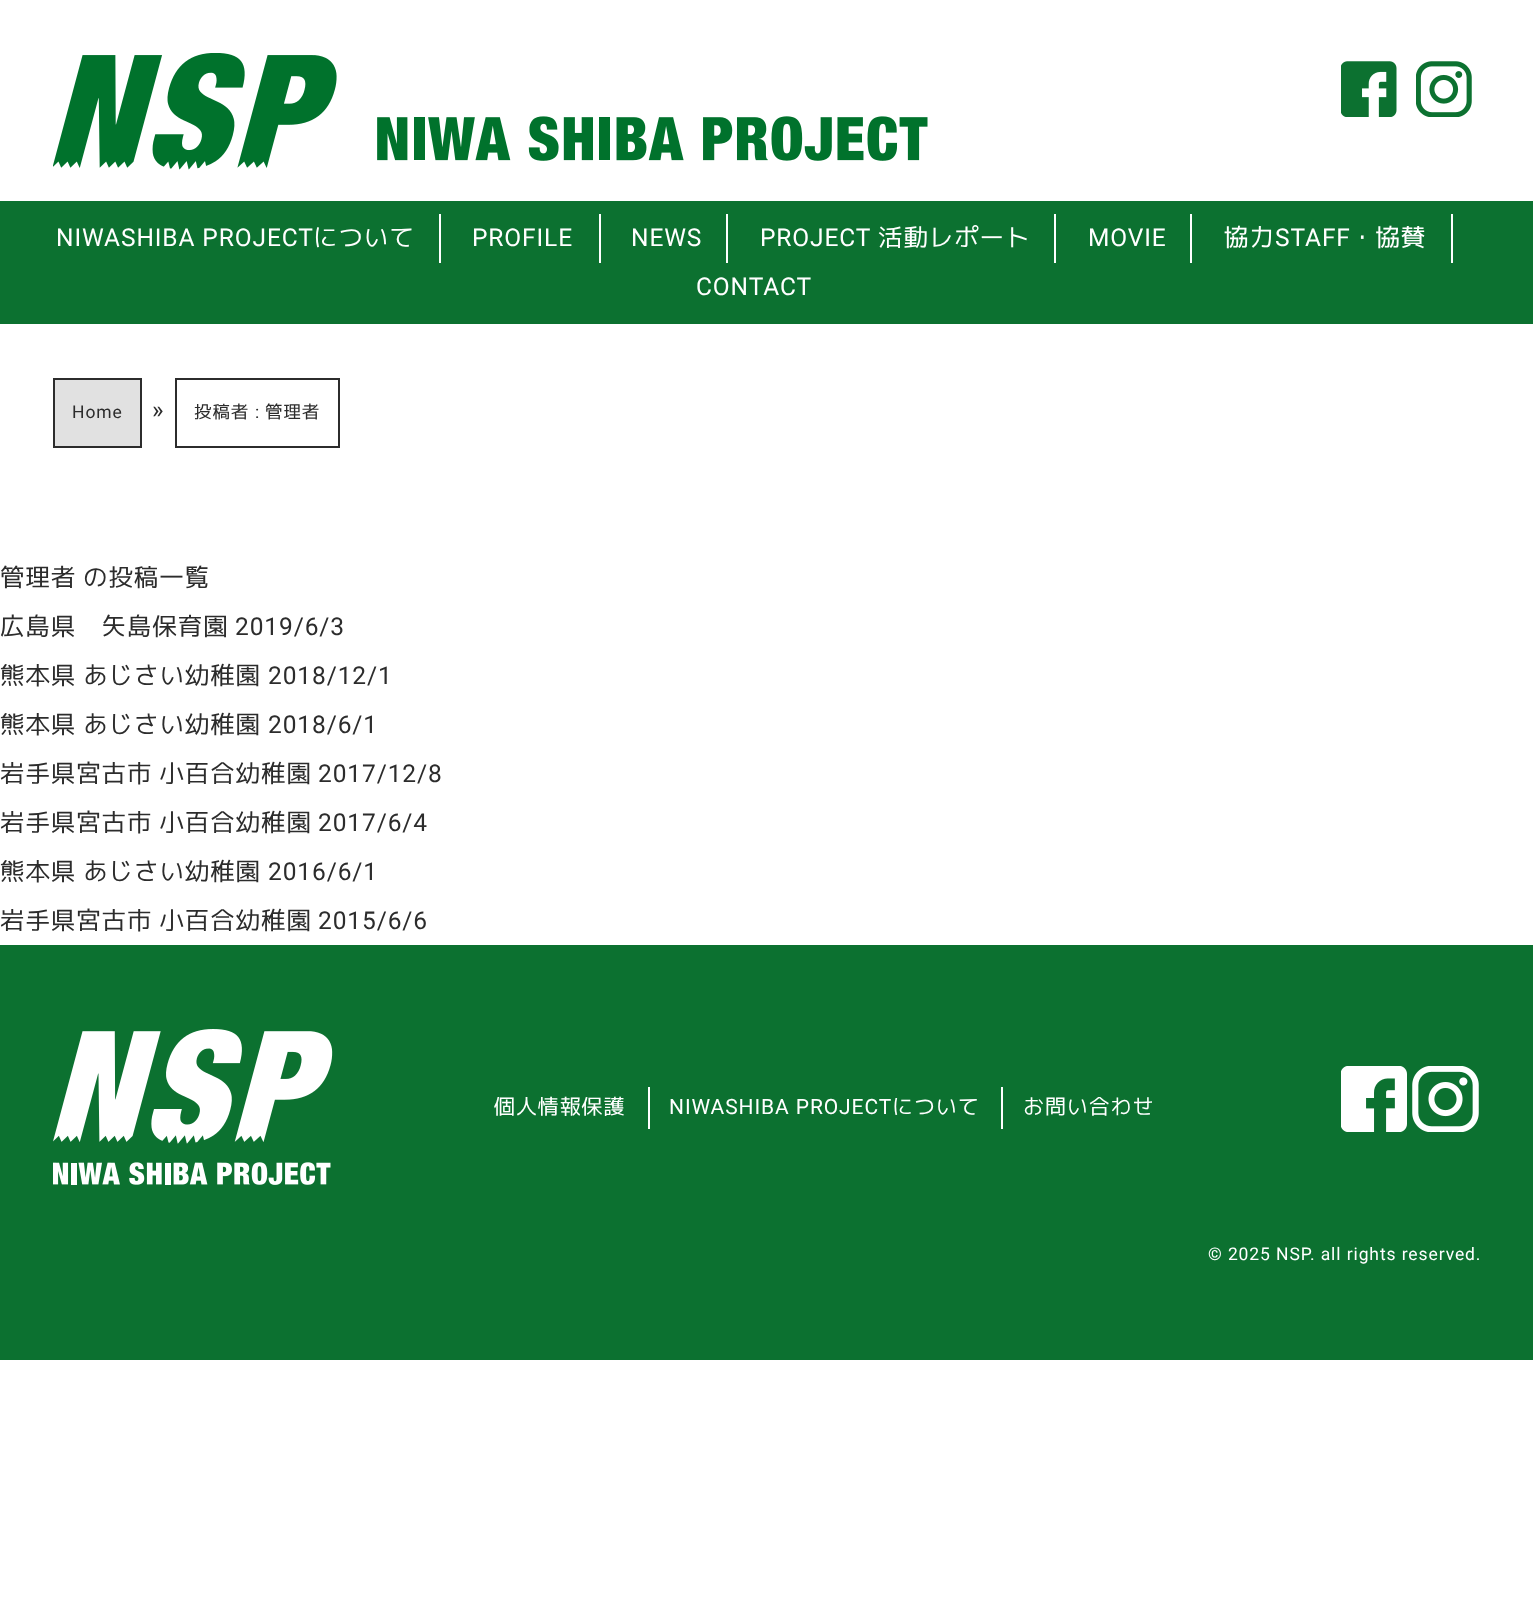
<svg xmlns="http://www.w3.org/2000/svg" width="1533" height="1616">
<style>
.a{font:24.5px Roboto;letter-spacing:0.9px;fill:#fff}
.b{font:24.5px 'M PLUS 1p';letter-spacing:0.9px;fill:#fff}
.c{font:17.5px Roboto;letter-spacing:0.9px;fill:#2c2c2c}
.d{font:24.5px Roboto;letter-spacing:0.9px;fill:#2c2c2c}
.e{font:17.5px 'M PLUS 1p';letter-spacing:0.9px;fill:#2c2c2c}
.f{font:24.5px 'M PLUS 1p';letter-spacing:0.9px;fill:#2c2c2c}
.g{font:21px 'M PLUS 1p';letter-spacing:0.9px;fill:#fff}
.h{font:21px Roboto;letter-spacing:0.9px;fill:#fff}
.i{font:17.5px Roboto;letter-spacing:0.9px;fill:#fff}
</style>
<rect width="100%" height="100%" fill="#fff"/>
<image href="1.png" x="53" y="53" width="875" height="117"/>
<image href="2.png" x="1341" y="61" width="56" height="56"/>
<image href="3.png" x="1416" y="61" width="56" height="56"/>
<path fill="#0c7130" d="M0 201h1533v123H0z"/>
<path fill="#fff" d="M439 214h2v49H439z"/>
<path fill="#fff" d="M599 214h2v49H599z"/>
<path fill="#fff" d="M726 214h2v49H726z"/>
<path fill="#fff" d="M1054 214h2v49H1054z"/>
<path fill="#fff" d="M1190 214h2v49H1190z"/>
<path fill="#fff" d="M1451 214h2v49H1451z"/>
<path fill="#e1e1e1" stroke="#2c2c2c" stroke-width="2" d="M54 379h87v68H54z"/>
<path fill="none" stroke="#2c2c2c" stroke-width="2" d="M176 379h163v68H176z"/>
<path fill="#0c7130" d="M0 945h1533v415H0z"/>
<image href="4.png" x="53" y="1029" width="280" height="156"/>
<path fill="#fff" d="M648 1087h2v42H648z"/>
<path fill="#fff" d="M1001 1087h2v42H1001z"/>
<image href="5.png" x="1341" y="1066" width="66" height="66"/>
<image href="6.png" x="1412" y="1066" width="67" height="66"/>
<text class="a" x="56" y="246">NIWASHIBA PROJECT</text>
<text class="b" x="313" y="246">について</text>
<text class="a" x="472" y="246">PROFILE</text>
<text class="a" x="631" y="246">NEWS</text>
<text class="a" x="760" y="246">PROJECT</text>
<text class="b" x="878" y="246">活動レポート</text>
<text class="a" x="1088" y="246">MOVIE</text>
<text class="b" x="1224" y="246">協力</text>
<text class="a" x="1275" y="246">STAFF</text>
<text class="b" x="1350" y="246">・協賛</text>
<text class="a" x="696" y="295">CONTACT</text>
<text class="c" x="72" y="418">Home</text>
<text class="d" x="152" y="418">»</text>
<text class="e" x="194" y="418">投稿者</text>
<text class="c" x="255" y="418">:</text>
<text class="e" x="265" y="418">管理者</text>
<text class="f" x="0" y="586">管理者</text>
<text class="f" x="83" y="586">の投稿一覧</text>
<text class="f" x="0" y="635">広島県　矢島保育園</text>
<text class="d" x="235" y="635">2019/6/3</text>
<text class="f" x="0" y="684" word-spacing="-1">熊本県 あじさい幼稚園</text>
<text class="d" x="268" y="684">2018/12/1</text>
<text class="f" x="0" y="733" word-spacing="-1">熊本県 あじさい幼稚園</text>
<text class="d" x="268" y="733">2018/6/1</text>
<text class="f" x="0" y="782" word-spacing="-1">岩手県宮古市 小百合幼稚園</text>
<text class="d" x="318" y="782">2017/12/8</text>
<text class="f" x="0" y="831" word-spacing="-1">岩手県宮古市 小百合幼稚園</text>
<text class="d" x="318" y="831">2017/6/4</text>
<text class="f" x="0" y="880" word-spacing="-1">熊本県 あじさい幼稚園</text>
<text class="d" x="268" y="880">2016/6/1</text>
<text class="f" x="0" y="929" word-spacing="-1">岩手県宮古市 小百合幼稚園</text>
<text class="d" x="318" y="929">2015/6/6</text>
<text class="g" x="494" y="1114">個人情報保護</text>
<text class="h" x="669" y="1114">NIWASHIBA PROJECT</text>
<text class="g" x="892" y="1114">について</text>
<text class="g" x="1023" y="1114">お問い合わせ</text>
<text class="i" x="1208" y="1260">©︎ 2025 NSP. all rights reserved.</text>
</svg>
